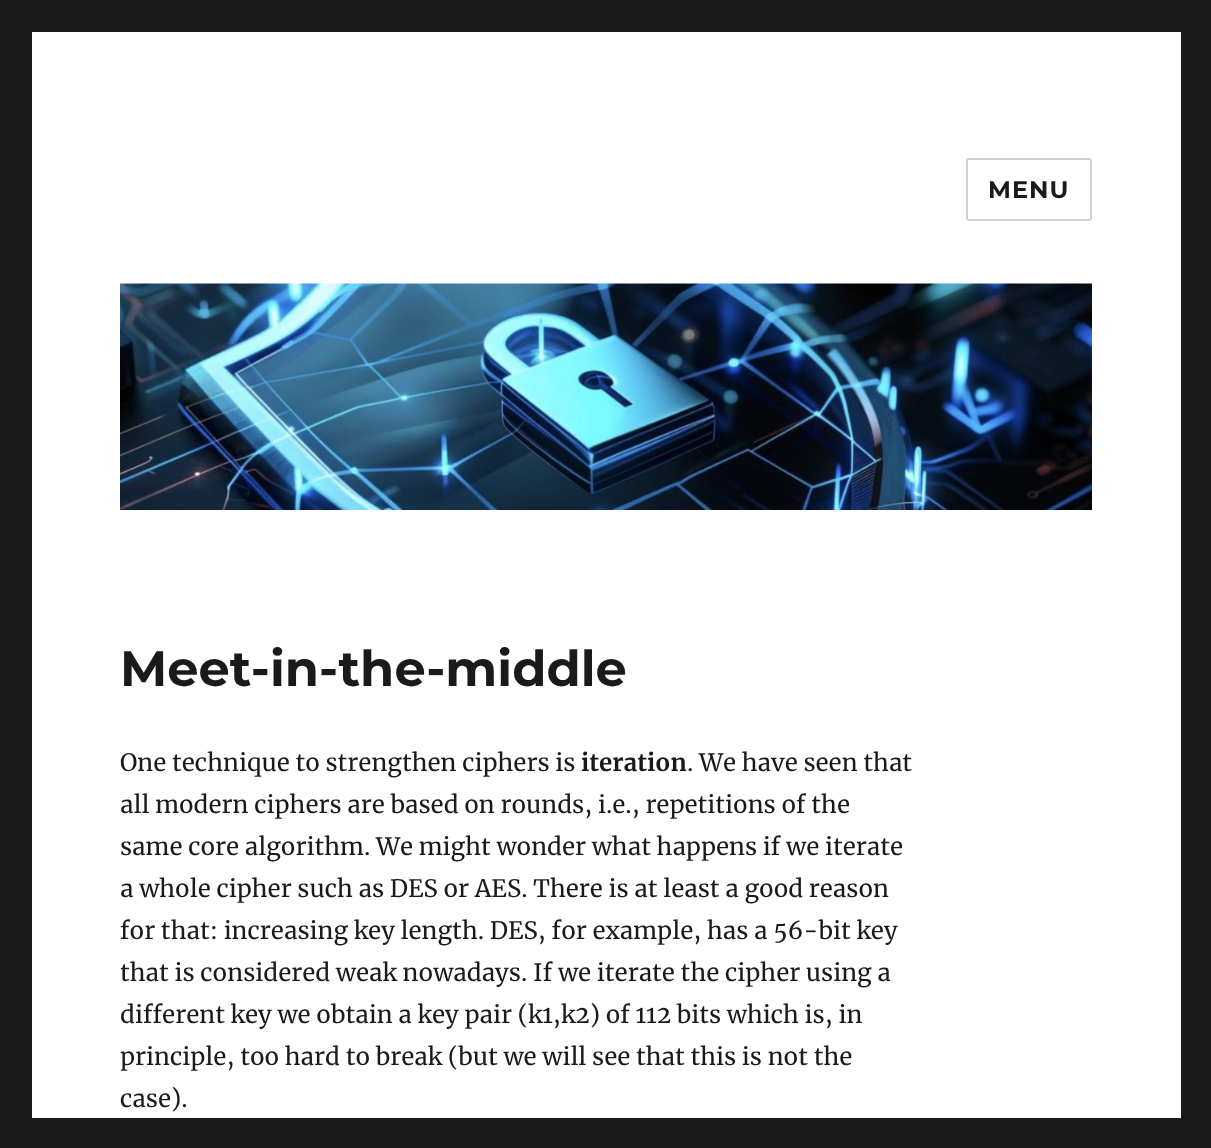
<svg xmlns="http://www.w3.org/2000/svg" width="1211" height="1148">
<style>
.a{font:100 24px Montserrat;letter-spacing:1px;fill:#1a1a1a}
.b{font:100 49.5px Montserrat;fill:#1a1a1a}
.c{font:24px Merriweather;fill:#1a1a1a}
.d{font:bold 24px Merriweather;fill:#1a1a1a}
</style>
<rect width="100%" height="100%" fill="#1a1a1a"/>
<path fill="#fff" d="M32 32h1149v1086H32z"/>
<rect fill="none" stroke="#d1d1d1" stroke-width="2" x="967" y="159" width="124" height="61" rx="2"/>
<image href="1.png" x="120" y="283" width="972" height="227"/>
<text class="a" x="988" y="198">MENU</text>
<text class="b" x="120" y="686">Meet-in-the-middle</text>
<text class="c" x="120" y="771">One technique to strengthen ciphers is</text>
<text class="d" x="581" y="771">iteration</text>
<text class="c" x="687" y="771">. We have seen that</text>
<text class="c" x="120" y="813">all modern ciphers are based on rounds, i.e., repetitions of the</text>
<text class="c" x="120" y="855">same core algorithm. We might wonder what happens if we iterate</text>
<text class="c" x="120" y="897">a whole cipher such as DES or AES. There is at least a good reason</text>
<text class="c" x="120" y="939">for that: increasing key length. DES, for example, has a 56-bit key</text>
<text class="c" x="120" y="981">that is considered weak nowadays. If we iterate the cipher using a</text>
<text class="c" x="120" y="1023">different key we obtain a key pair (k1,k2) of 112 bits which is, in</text>
<text class="c" x="120" y="1065">principle, too hard to break (but we will see that this is not the</text>
<text class="c" x="120" y="1107">case).</text>
</svg>
